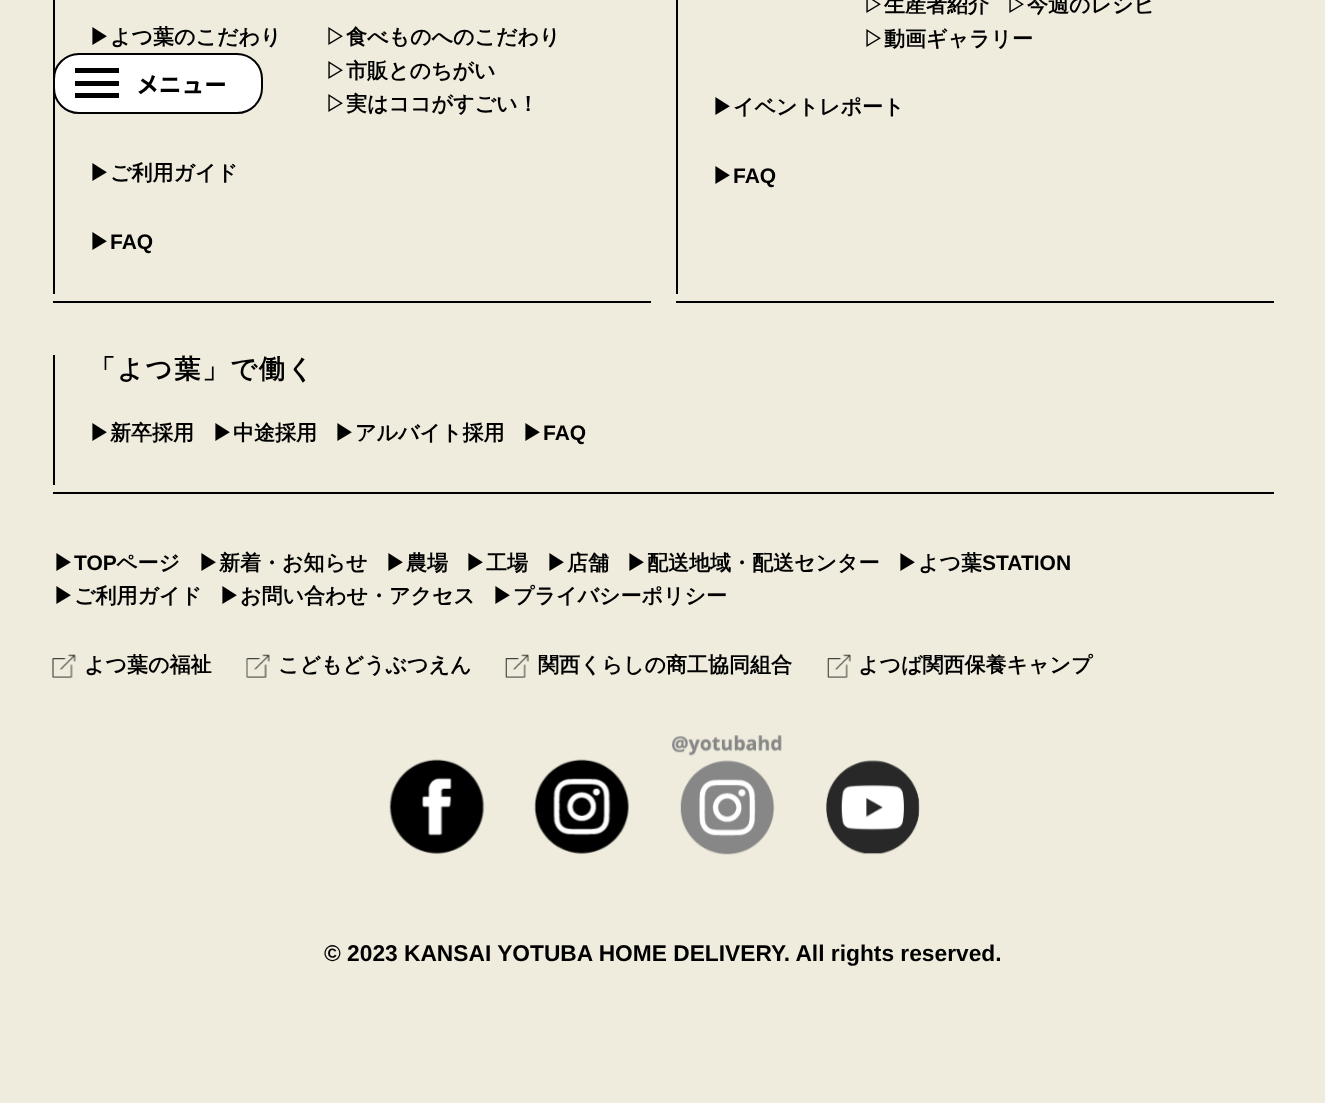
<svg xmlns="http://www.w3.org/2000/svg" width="1325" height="1103">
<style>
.a{font:bold 21px WenQuanYi Zen Hei;fill:#000}
.b{font:bold 21px Liberation Sans;fill:#000}
.c{font:bold 26.25px WenQuanYi Zen Hei;letter-spacing:1.75px;fill:#000}
.d{font:bold 22.75px Liberation Sans;fill:#000}
.e{font:bold 22.75px Noto Sans JP;fill:#000}
</style>
<rect width="100%" height="100%" fill="#efecdd"/>
<path fill="#000" d="M53 301h598v2H53z"/>
<path fill="#000" d="M53 0h2v294H53z"/>
<path fill="#000" d="M676 301h598v2H676z"/>
<path fill="#000" d="M676 0h2v294H676z"/>
<path fill="#000" d="M53 492h1221v2H53z"/>
<path fill="#000" d="M53 355h2v130H53z"/>
<image href="1.png" x="52" y="654" width="24" height="24"/>
<image href="2.png" x="246" y="654" width="24" height="24"/>
<image href="3.png" x="505" y="654" width="24" height="24"/>
<image href="4.png" x="827" y="654" width="24" height="24"/>
<image href="5.png" x="389" y="759" width="96" height="95"/>
<image href="6.png" x="534" y="759" width="95" height="95"/>
<image href="7.png" x="672" y="735" width="110" height="120"/>
<image href="8.png" x="826" y="760" width="94" height="95"/>
<rect fill="#fff" stroke="#000" stroke-width="2" x="54" y="54" width="208" height="59" rx="25"/>
<path fill="#000" d="M75 68h44v5H75z"/>
<path fill="#000" d="M75 81h44v5H75z"/>
<path fill="#000" d="M75 93h44v5H75z"/>
<text class="a" x="89" y="44">▶︎よつ葉のこだわり</text>
<text class="a" x="325" y="44">▷食べものへのこだわり</text>
<text class="a" x="325" y="78">▷市販とのちがい</text>
<text class="a" x="325" y="111">▷実はココがすごい！</text>
<text class="a" x="89" y="180">▶︎ご利用ガイド</text>
<text class="a" x="89" y="249">▶︎</text>
<text class="b" x="110" y="249">FAQ</text>
<text class="a" x="863" y="12">▷生産者紹介</text>
<text class="a" x="1006" y="12">▷今週のレシピ</text>
<text class="a" x="863" y="46">▷動画ギャラリー</text>
<text class="a" x="712" y="114">▶︎イベントレポート</text>
<text class="a" x="712" y="183">▶︎</text>
<text class="b" x="733" y="183">FAQ</text>
<text class="c" x="89" y="378">「よつ葉」で働く</text>
<text class="a" x="89" y="440">▶︎新卒採用</text>
<text class="a" x="212" y="440">▶︎中途採用</text>
<text class="a" x="334" y="440">▶︎アルバイト採用</text>
<text class="a" x="522" y="440">▶︎</text>
<text class="b" x="543" y="440">FAQ</text>
<text class="a" x="53" y="570">▶︎</text>
<text class="b" x="74" y="570">TOP</text>
<text class="a" x="116" y="570">ページ</text>
<text class="a" x="198" y="570">▶︎新着・お知らせ</text>
<text class="a" x="385" y="570">▶︎農場</text>
<text class="a" x="465" y="570">▶︎工場</text>
<text class="a" x="546" y="570">▶︎店舗</text>
<text class="a" x="626" y="570">▶︎配送地域・配送センター</text>
<text class="a" x="897" y="570">▶︎よつ葉</text>
<text class="b" x="982" y="570">STATION</text>
<text class="a" x="53" y="603">▶︎ご利用ガイド</text>
<text class="a" x="219" y="603">▶︎お問い合わせ・アクセス</text>
<text class="a" x="492" y="603">▶︎プライバシーポリシー</text>
<text class="a" x="84" y="672">よつ葉の福祉</text>
<text class="a" x="278" y="672">こどもどうぶつえん</text>
<text class="a" x="538" y="672">関西くらしの商工協同組合</text>
<text class="a" x="858" y="672">よつば関西保養キャンプ</text>
<text class="d" x="324" y="961">© 2023 KANSAI YOTUBA HOME DELIVERY. All rights reserved.</text>
<text class="e" x="136" y="93">メニュー</text>
</svg>
